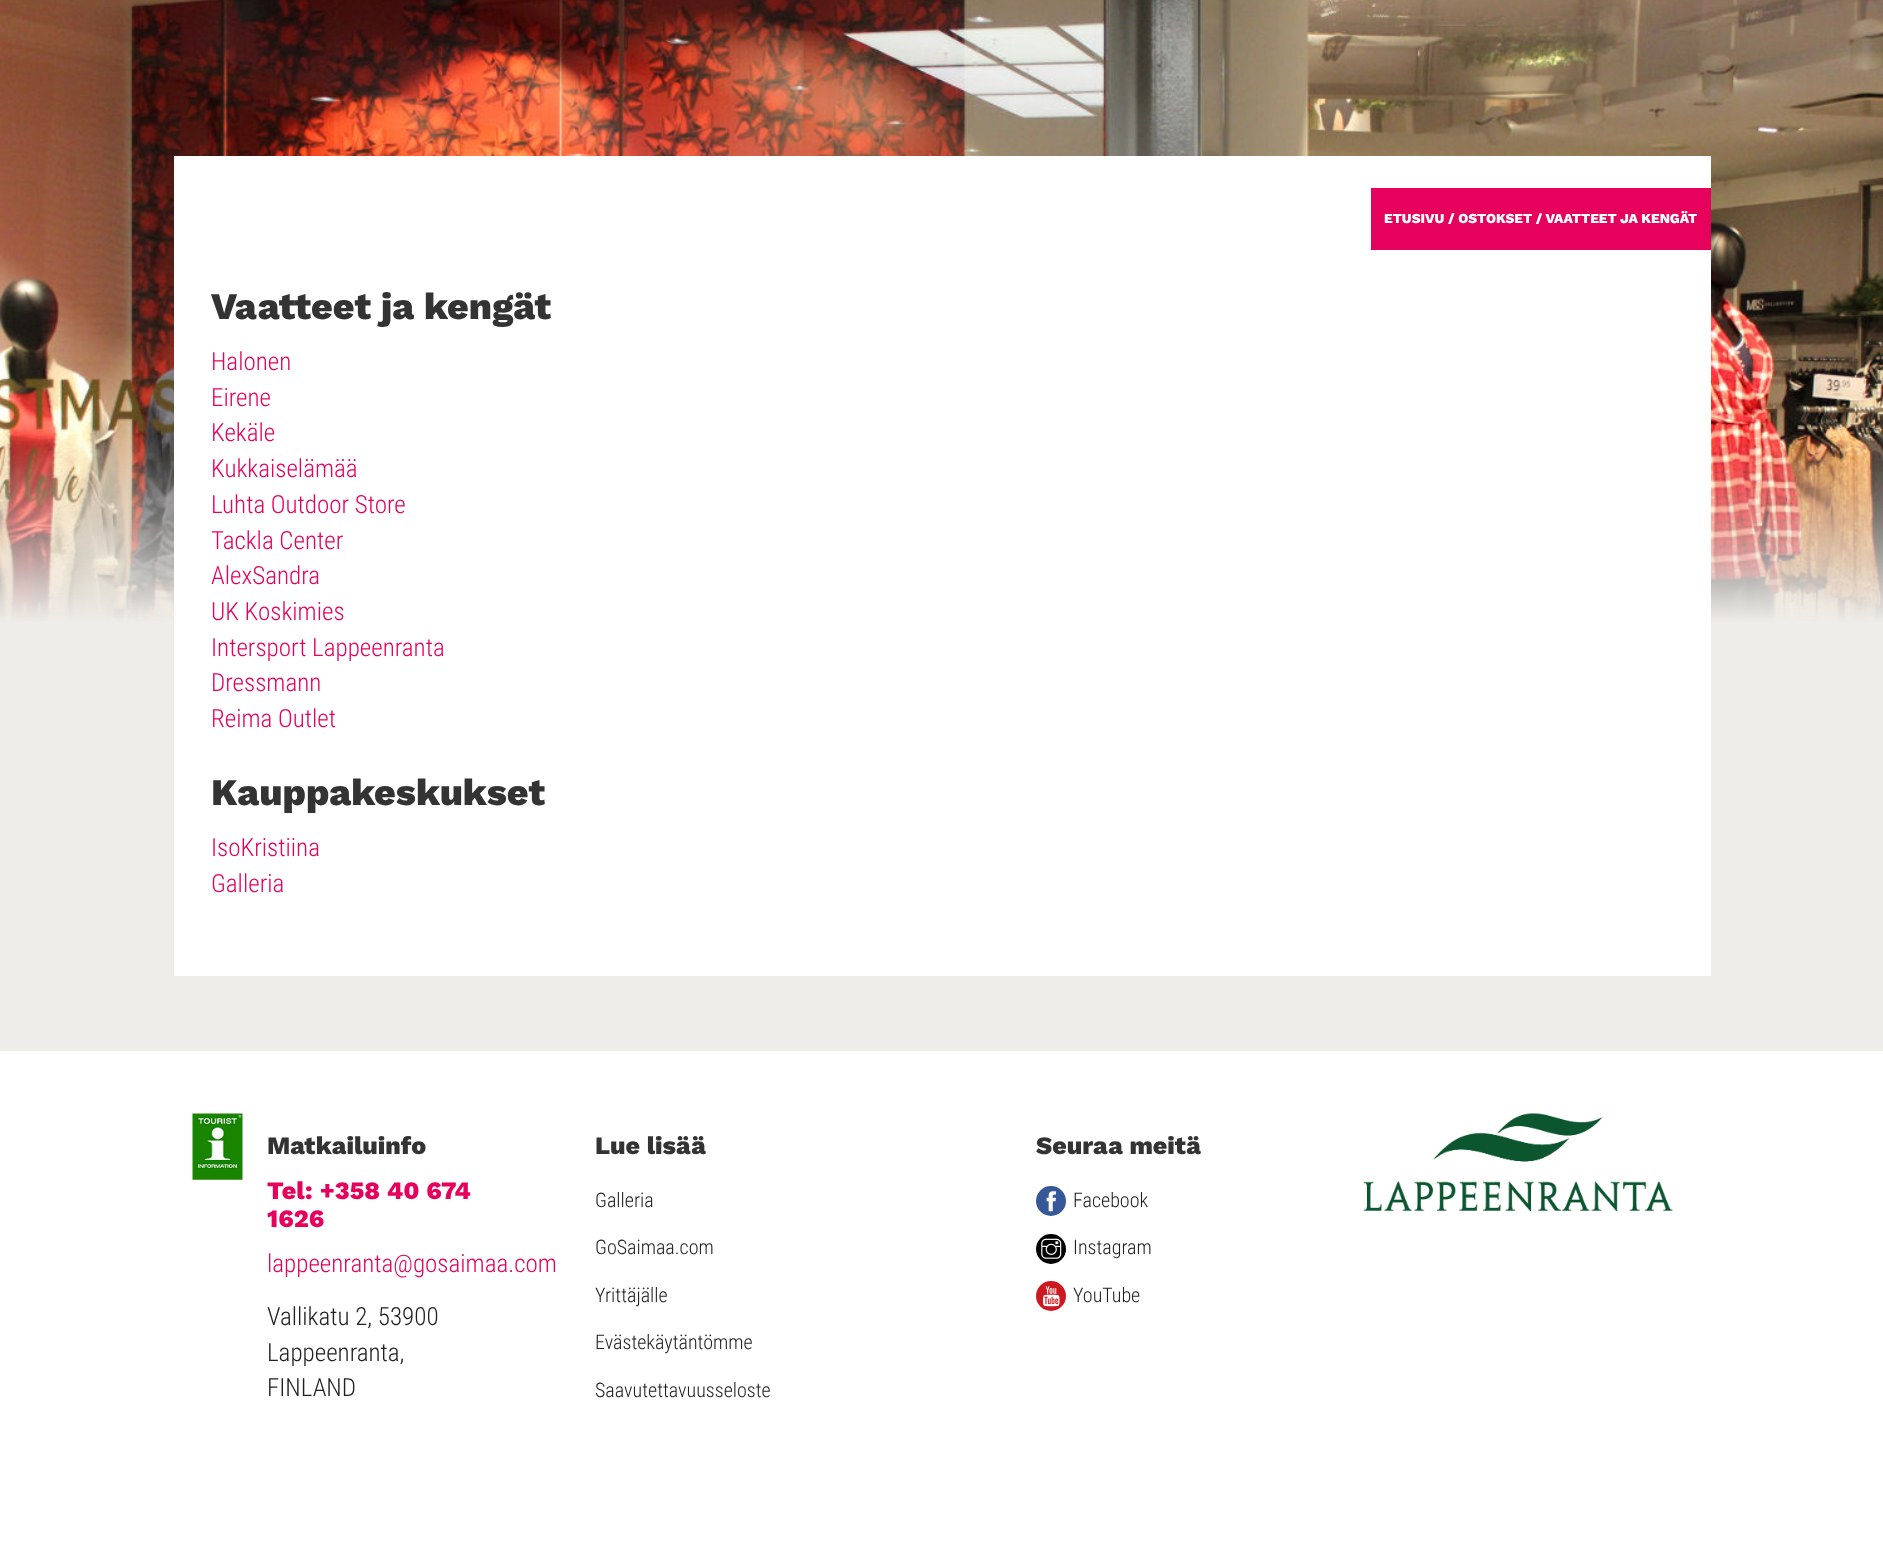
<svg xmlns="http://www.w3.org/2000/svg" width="1883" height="1542">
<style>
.a{font:800 13.75px Work Sans;fill:#fff}
.b{font:800 37.5px Work Sans;fill:#333}
.c{font:300 25px Roboto Condensed;fill:#e6015c}
.d{font:800 25px Work Sans;fill:#333}
.e{font:800 25px Work Sans;fill:#e6015c}
.f{font:300 25px Roboto Condensed;fill:#202020}
.g{font:300 20px Roboto Condensed;fill:#202020}
</style>
<rect width="100%" height="100%" fill="#efede9"/>
<image href="1.png" x="0" y="0" width="1883" height="976"/>
<path fill="#fff" d="M174 156h1537v820H174z"/>
<path fill="#e6015c" d="M1371 188h340v62H1371z"/>
<path fill="#fff" d="M0 1051h1883v491H0z"/>
<image href="2.png" x="192" y="1113" width="51" height="67"/>
<circle fill="#365899" cx="1051" cy="1201" r="15"/>
<image href="3.png" x="1046" y="1191" width="10" height="21"/>
<circle fill="#000" cx="1051" cy="1249" r="15"/>
<image href="4.png" x="1041" y="1238" width="21" height="21"/>
<circle fill="#cc181e" cx="1051" cy="1296" r="15"/>
<image href="5.png" x="1042" y="1286" width="18" height="21"/>
<image href="6.png" x="1363" y="1113" width="310" height="98"/>
<text class="a" x="1384" y="223">ETUSIVU / OSTOKSET / VAATTEET JA KENGÄT</text>
<text class="b" x="211" y="319">Vaatteet ja kengät</text>
<text class="c" x="211" y="370">Halonen</text>
<text class="c" x="211" y="406">Eirene</text>
<text class="c" x="211" y="441">Kekäle</text>
<text class="c" x="211" y="477">Kukkaiselämää</text>
<text class="c" x="211" y="513">Luhta Outdoor Store</text>
<text class="c" x="211" y="549">Tackla Center</text>
<text class="c" x="211" y="584">AlexSandra</text>
<text class="c" x="211" y="620">UK Koskimies</text>
<text class="c" x="211" y="656">Intersport Lappeenranta</text>
<text class="c" x="211" y="691">Dressmann</text>
<text class="c" x="211" y="727">Reima Outlet</text>
<text class="b" x="211" y="805">Kauppakeskukset</text>
<text class="c" x="211" y="856">IsoKristiina</text>
<text class="c" x="211" y="892">Galleria</text>
<text class="d" x="267" y="1154">Matkailuinfo</text>
<text class="e" x="267" y="1199">Tel: +358 40 674</text>
<text class="e" x="267" y="1227">1626</text>
<text class="c" x="267" y="1272">lappeenranta@gosaimaa.com</text>
<text class="f" x="267" y="1325">Vallikatu 2, 53900</text>
<text class="f" x="267" y="1361">Lappeenranta,</text>
<text class="f" x="267" y="1396">FINLAND</text>
<text class="d" x="595" y="1154">Lue lisää</text>
<text class="g" x="595" y="1207">Galleria</text>
<text class="g" x="595" y="1254">GoSaimaa.com</text>
<text class="g" x="595" y="1302">Yrittäjälle</text>
<text class="g" x="595" y="1349">Evästekäytäntömme</text>
<text class="g" x="595" y="1397">Saavutettavuusseloste</text>
<text class="d" x="1036" y="1154">Seuraa meitä</text>
<text class="g" x="1073" y="1207">Facebook</text>
<text class="g" x="1073" y="1254">Instagram</text>
<text class="g" x="1073" y="1302">YouTube</text>
</svg>
